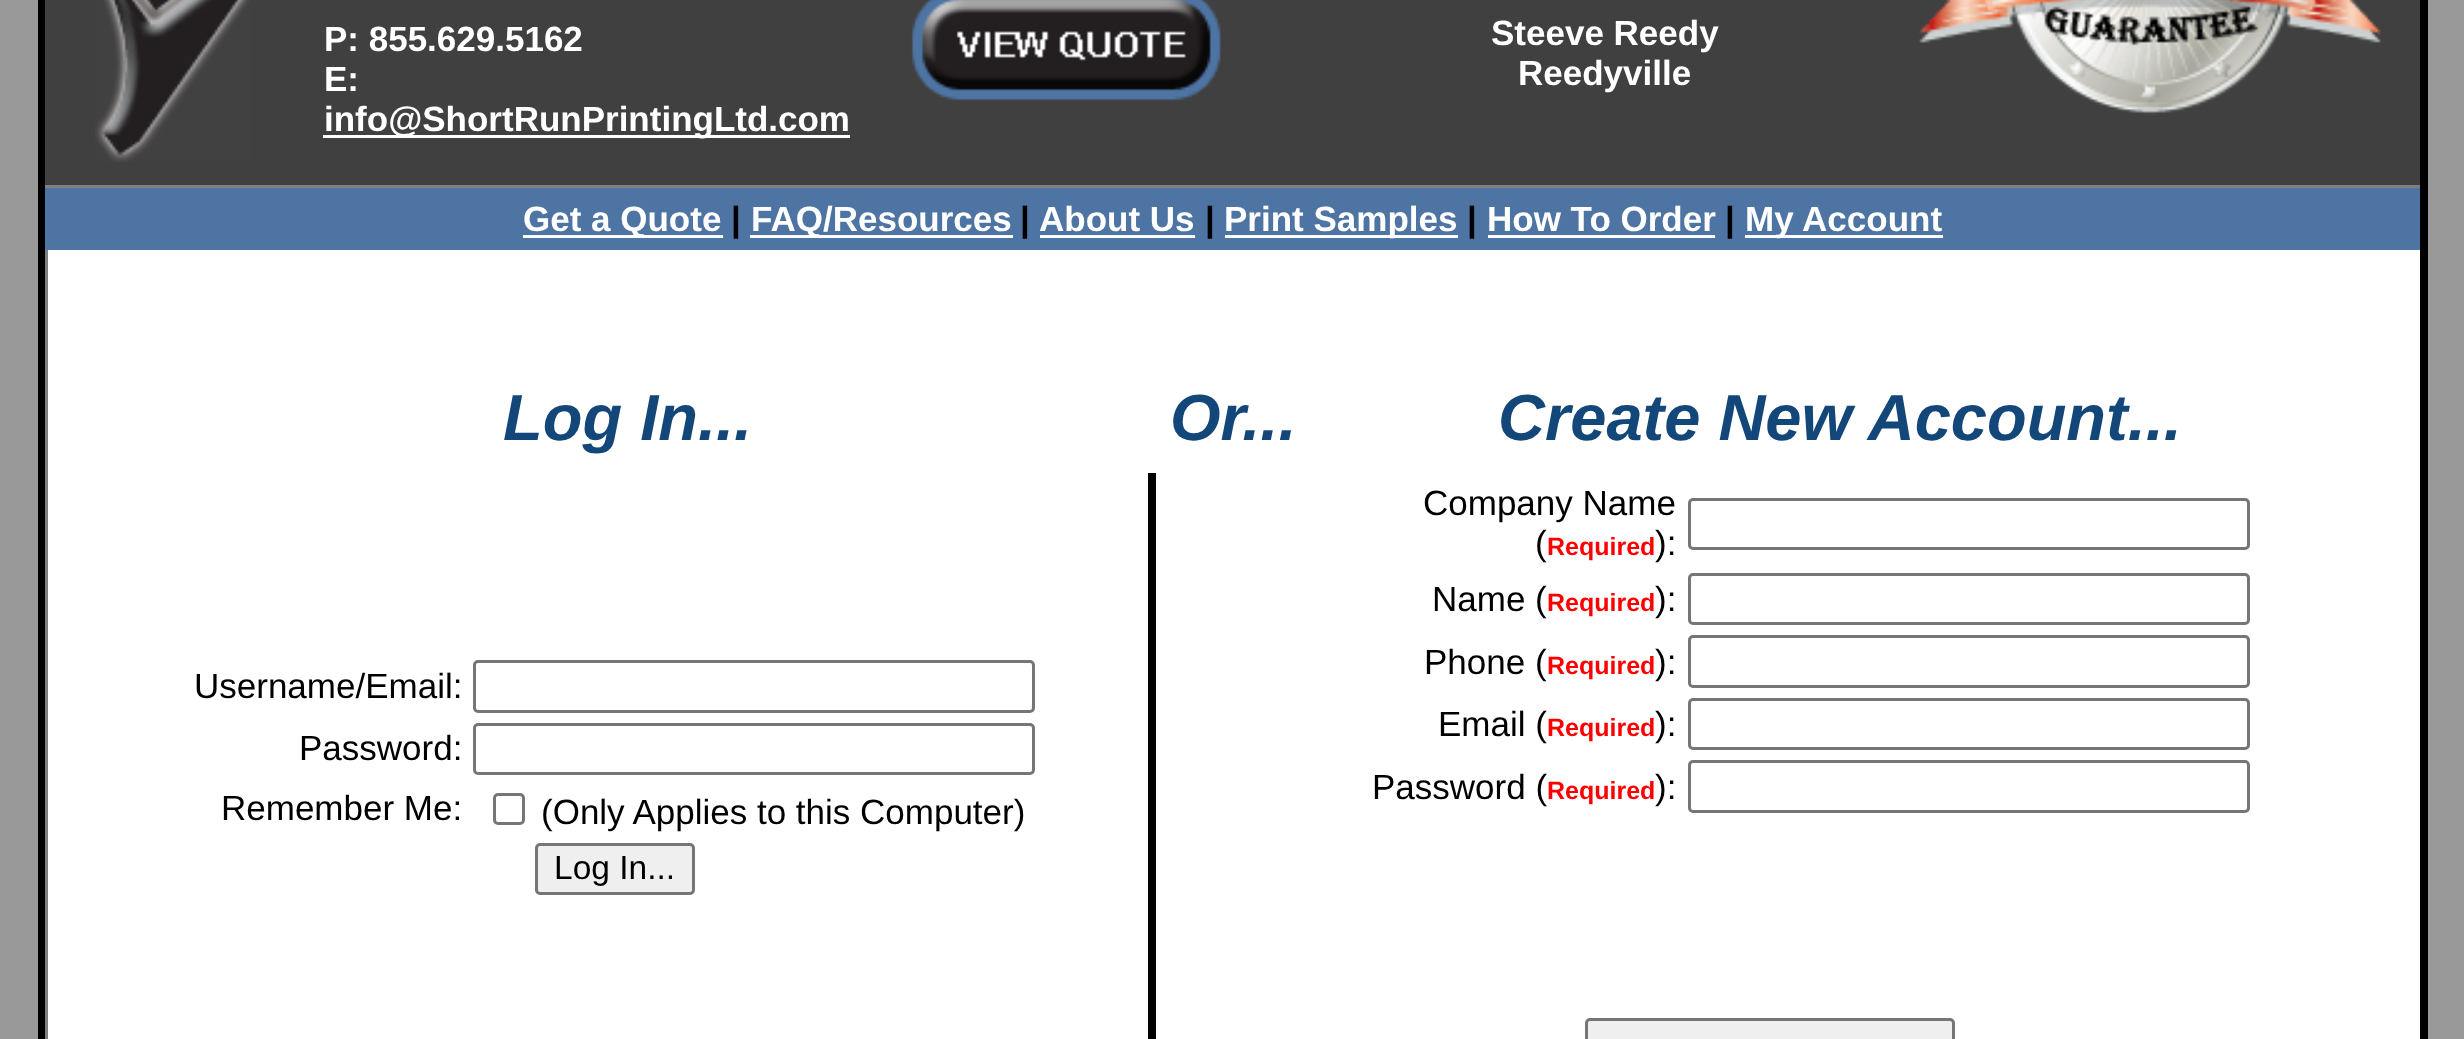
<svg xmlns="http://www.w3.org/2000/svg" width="2464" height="1039">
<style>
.a{font:bold 35px Liberation Sans;fill:#fff}
.b{font:bold 35px Liberation Sans;fill:#000}
.c{font:italic bold 65px Liberation Sans;fill:#134679}
.d{font:35px Liberation Sans;fill:#000}
.e{font:33.5px Liberation Sans;fill:#000}
.f{font:bold 25px Liberation Sans;fill:#f00}
</style>
<rect width="100%" height="100%" fill="#999"/>
<path fill="#fff" d="M48 250h2372v789H48z"/>
<path fill="none" stroke="#000" stroke-width="8" d="M42 -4h2382v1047H42z"/>
<path fill="#404040" d="M45 0h2375v185H45z"/>
<path fill="#808080" d="M45 185h2375v3H45z"/>
<image href="1.png" x="95" y="0" width="155" height="162"/>
<path fill="#fff" d="M323 135h527v3H323z"/>
<image href="2.png" x="911" y="0" width="310" height="101"/>
<image href="3.png" x="1919" y="0" width="462" height="115"/>
<path fill="#4e74a3" d="M45 188h2375v62H45z"/>
<path fill="#fff" d="M523 235h200v3H523z"/>
<path fill="#fff" d="M750 235h263v3H750z"/>
<path fill="#fff" d="M1040 235h155v3H1040z"/>
<path fill="#fff" d="M1225 235h233v3H1225z"/>
<path fill="#fff" d="M1488 235h227v3H1488z"/>
<path fill="#fff" d="M1745 235h198v3H1745z"/>
<path fill="#808080" d="M45 250h3v789H45z"/>
<rect fill="none" stroke="#767676" stroke-width="3" x="474.5" y="661.5" width="559" height="50" rx="3.5"/>
<rect fill="none" stroke="#767676" stroke-width="3" x="474.5" y="724.5" width="559" height="49" rx="3.5"/>
<rect fill="none" stroke="#767676" stroke-width="3" x="494.5" y="794.5" width="29" height="29" rx="3.5"/>
<rect fill="#efefef" stroke="#767676" stroke-width="3" x="536.5" y="844.5" width="157" height="49" rx="3.5"/>
<path fill="#000" d="M1148 473h8v566H1148z"/>
<rect fill="none" stroke="#767676" stroke-width="3" x="1689.5" y="499.5" width="559" height="49" rx="3.5"/>
<rect fill="none" stroke="#767676" stroke-width="3" x="1689.5" y="574.5" width="559" height="49" rx="3.5"/>
<rect fill="none" stroke="#767676" stroke-width="3" x="1689.5" y="636.5" width="559" height="50" rx="3.5"/>
<rect fill="none" stroke="#767676" stroke-width="3" x="1689.5" y="699.5" width="559" height="49" rx="3.5"/>
<rect fill="none" stroke="#767676" stroke-width="3" x="1689.5" y="761.5" width="559" height="50" rx="3.5"/>
<rect fill="#efefef" stroke="#767676" stroke-width="3" x="1586.5" y="1019.5" width="367" height="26" rx="3.5"/>
<text class="a" x="324" y="51">P: 855.629.5162</text>
<text class="a" x="324" y="91">E:</text>
<text class="a" x="324" y="131">info@ShortRunPrintingLtd.com</text>
<text class="a" x="1491" y="45">Steeve Reedy</text>
<text class="a" x="1518" y="85">Reedyville</text>
<text class="a" x="523" y="231">Get a Quote</text>
<text class="b" x="731" y="231">|</text>
<text class="a" x="751" y="231">FAQ/Resources</text>
<text class="b" x="1020" y="231">|</text>
<text class="a" x="1039" y="231">About Us</text>
<text class="b" x="1205" y="231">|</text>
<text class="a" x="1224" y="231">Print Samples</text>
<text class="b" x="1467" y="231">|</text>
<text class="a" x="1487" y="231">How To Order</text>
<text class="b" x="1725" y="231">|</text>
<text class="a" x="1745" y="231">My Account</text>
<text class="c" x="503" y="440">Log In...</text>
<text class="c" x="1170" y="440">Or...</text>
<text class="c" x="1498" y="440">Create New Account...</text>
<text class="d" x="194" y="698">Username/Email:</text>
<text class="d" x="299" y="760">Password:</text>
<text class="d" x="221" y="820">Remember Me:</text>
<text class="d" x="541" y="824">(Only Applies to this Computer)</text>
<text class="e" x="554" y="879">Log In...</text>
<text class="d" x="1423" y="515">Company Name</text>
<text class="d" x="1535" y="555">(</text>
<text class="f" x="1547" y="555">Required</text>
<text class="d" x="1655" y="555">):</text>
<text class="d" x="1432" y="611">Name (</text>
<text class="f" x="1547" y="611">Required</text>
<text class="d" x="1655" y="611">):</text>
<text class="d" x="1424" y="674">Phone (</text>
<text class="f" x="1547" y="674">Required</text>
<text class="d" x="1655" y="674">):</text>
<text class="d" x="1438" y="736">Email (</text>
<text class="f" x="1547" y="736">Required</text>
<text class="d" x="1655" y="736">):</text>
<text class="d" x="1372" y="799">Password (</text>
<text class="f" x="1547" y="799">Required</text>
<text class="d" x="1655" y="799">):</text>
</svg>
